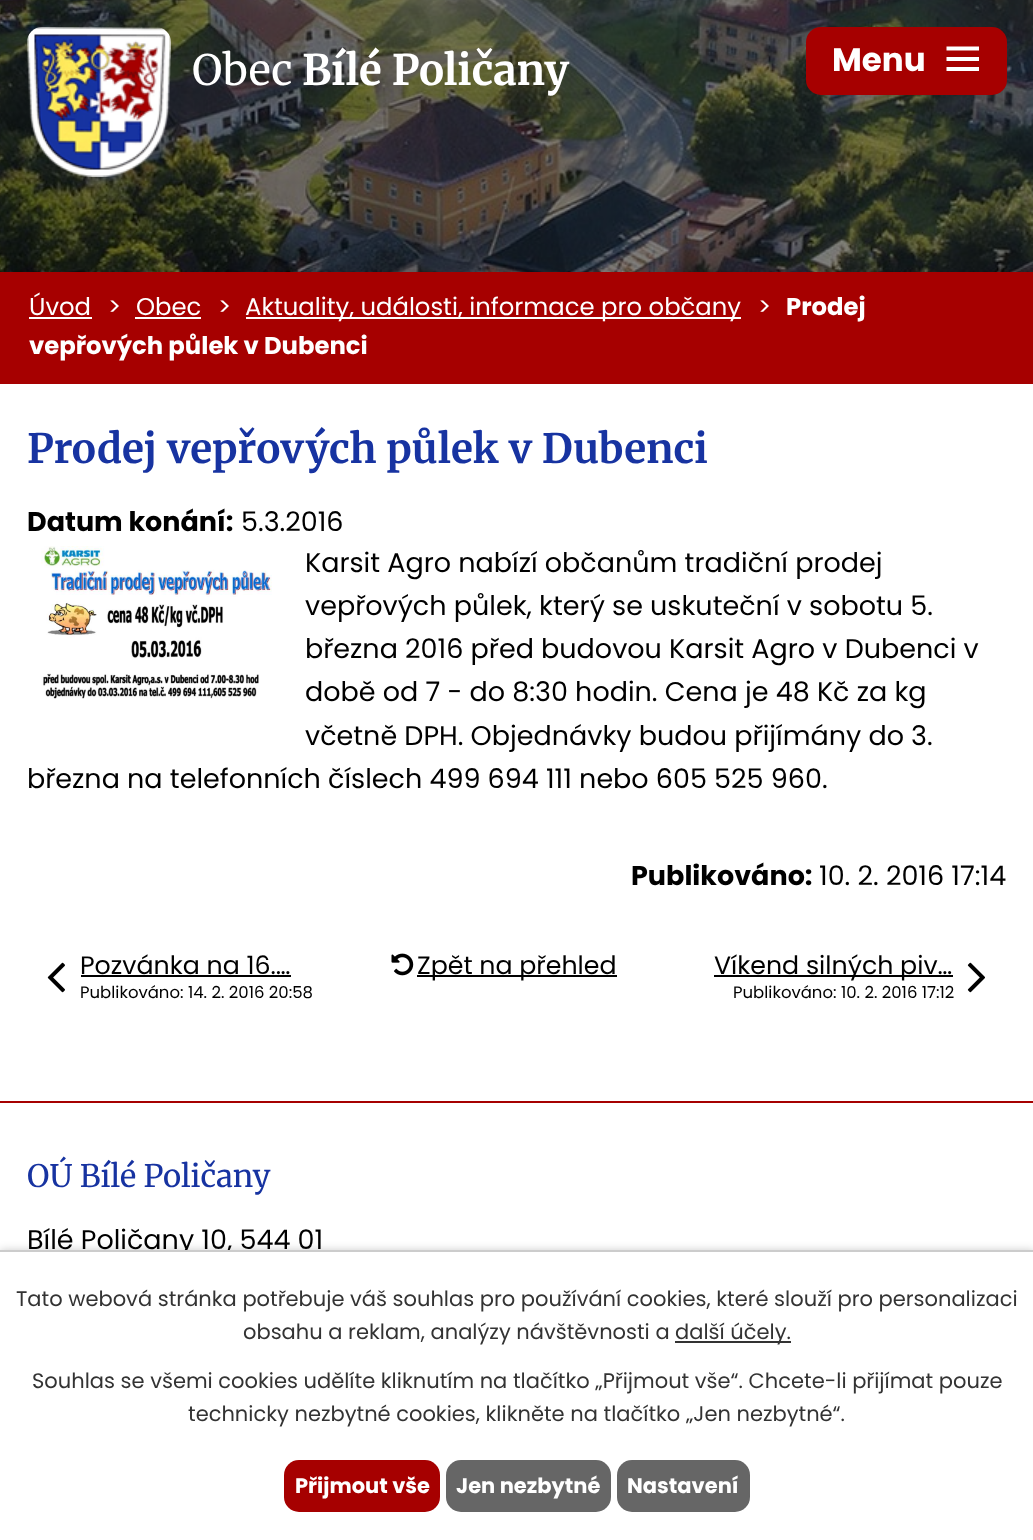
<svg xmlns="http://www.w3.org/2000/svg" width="1033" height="1540">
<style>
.a{font:42px Merriweather;fill:#fff}
.b{font:bold 42px Merriweather;fill:#fff}
.c{font:bold 32.5px Poppins;fill:#fff}
.d{font:24.3px Poppins;fill:#fff}
.e{font:bold 24.3px Poppins;fill:#fff}
.f{font:bold 40.5px Merriweather;fill:#1733a1}
.g{font:bold 27px Poppins;fill:#000}
.h{font:27px Poppins;fill:#000}
.i{font:25.25px Poppins;fill:#000}
.j{font:16.5px Poppins;fill:#000}
.k{font:31px Merriweather;fill:#1733a1}
.l{font:21px Poppins;fill:#333}
.m{font:bold 21px Poppins;fill:#fff}
</style>
<rect width="100%" height="100%" fill="#fff"/>
<image href="1.png" x="0" y="0" width="1033" height="272"/>
<path fill="#00000080" d="M0 0h1033v272H0z"/>
<image href="2.png" x="27" y="27" width="144" height="150"/>
<rect fill="#a60000" x="806" y="27" width="201" height="68" rx="15"/>
<path fill="#fff" d="M946.5 71v-4h32.5v4zm0-24.5h32.5v4h-32.5zm0 14.5v-4h32.5v4z"/>
<path fill="#a60000" d="M0 272h1033v112H0z"/>
<path fill="#fff" d="M29 317h63v2H29z"/>
<path fill="#fff" d="M135 317h66v2H135z"/>
<path fill="#fff" d="M246 317h495v2H246z"/>
<image href="3.png" x="41" y="546" width="231" height="153"/>
<image href="4.png" x="47" y="962" width="18" height="31"/>
<path fill="#000" d="M81 975h210v2H81z"/>
<image href="5.png" x="391" y="953" width="23" height="23"/>
<path fill="#000" d="M417 975h200v2H417z"/>
<path fill="#000" d="M714 975h239v2H714z"/>
<image href="6.png" x="967" y="962" width="18" height="31"/>
<path fill="#a60000" d="M0 1101h1033v2H0z"/>
<path fill="#00000033" filter="blur(4px)" d="M0 1250h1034v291H0z"/>
<text class="a" x="192" y="85">Obec</text>
<text class="b" x="302" y="85">Bílé Poličany</text>
<text class="c" x="832" y="71">Menu</text>
<text class="d" x="29" y="315">Úvod</text>
<text class="d" x="108" y="315">&gt;</text>
<text class="d" x="136" y="315">Obec</text>
<text class="d" x="218" y="315">&gt;</text>
<text class="d" x="245" y="315">Aktuality, události, informace pro občany</text>
<text class="d" x="758" y="315">&gt;</text>
<text class="e" x="786" y="315">Prodej</text>
<text class="e" x="29" y="354">vepřových půlek v Dubenci</text>
<text class="f" x="27" y="463">Prodej vepřových půlek v Dubenci</text>
<text class="g" x="27" y="531">Datum konání:</text>
<text class="h" x="241" y="531">5.3.2016</text>
<text class="h" x="305" y="572">Karsit Agro nabízí občanům tradiční prodej</text>
<text class="h" x="305" y="615">vepřových půlek, který se uskuteční v sobotu 5.</text>
<text class="h" x="305" y="658">března 2016 před budovou Karsit Agro v Dubenci v</text>
<text class="h" x="305" y="701">době od 7 - do 8:30 hodin. Cena je 48 Kč za kg</text>
<text class="h" x="305" y="745">včetně DPH. Objednávky budou přijímány do 3.</text>
<text class="h" x="27" y="788">března na telefonních číslech 499 694 111 nebo 605 525 960.</text>
<text class="g" x="631" y="885">Publikováno:</text>
<text class="h" x="819" y="885">10. 2. 2016 17:14</text>
<text class="i" x="80" y="974">Pozvánka na 16.…</text>
<text class="j" x="80" y="998">Publikováno: 14. 2. 2016 20:58</text>
<text class="i" x="417" y="974">Zpět na přehled</text>
<text class="i" x="714" y="974">Víkend silných piv…</text>
<text class="j" x="733" y="998">Publikováno: 10. 2. 2016 17:12</text>
<text class="k" x="27" y="1187">OÚ Bílé Poličany</text>
<text class="h" x="27" y="1249">Bílé Poličany 10, 544 01</text>
<path fill="#fff" d="M0 1252h1033v288H0z"/>
<path fill="#ccc" d="M0 1250h1033v2H0z"/>
<text class="l" x="16" y="1306">Tato webová stránka potřebuje váš souhlas pro používání cookies, které slouží pro personalizaci</text>
<text class="l" x="243" y="1339">obsahu a reklam, analýzy návštěvnosti a</text>
<path fill="#333" d="M675 1341h116v2H675z"/>
<text class="l" x="675" y="1339">další účely.</text>
<text class="l" x="32" y="1388">Souhlas se všemi cookies udělíte kliknutím na tlačítko „Přijmout vše“. Chcete-li přijímat pouze</text>
<text class="l" x="188" y="1421">technicky nezbytné cookies, klikněte na tlačítko „Jen nezbytné“.</text>
<rect fill="#a60000" x="284" y="1460" width="156" height="52" rx="15"/>
<text class="m" x="295" y="1493">Přijmout vše</text>
<rect fill="#666" x="446" y="1460" width="165" height="52" rx="15"/>
<text class="m" x="456" y="1493">Jen nezbytné</text>
<rect fill="#666" x="617" y="1460" width="133" height="52" rx="15"/>
<text class="m" x="627" y="1493">Nastavení</text>
</svg>
